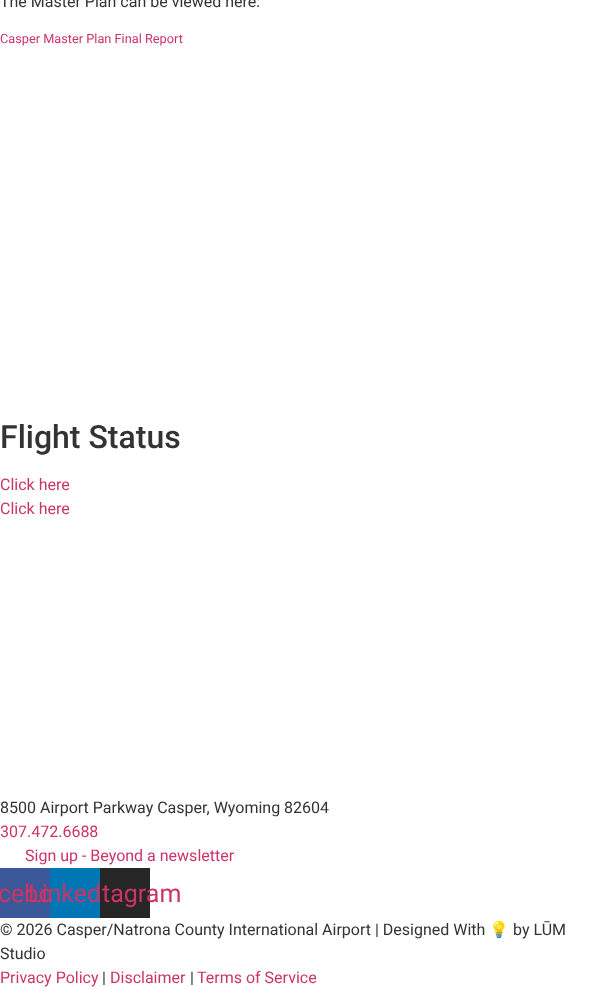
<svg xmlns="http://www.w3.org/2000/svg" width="593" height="990">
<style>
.a{font:16px Roboto;fill:#333}
.b{font:12.75px Roboto;fill:#c36}
.c{font:500 32px Roboto;fill:#333}
.d{font:16px Roboto;fill:#c36}
.e{font:25px Roboto;fill:#c36}
.f{font:16px Noto Color Emoji;fill:#333}
</style>
<rect width="100%" height="100%" fill="#fff"/>
<path fill="#3b5998" d="M0 868h50v50H0z"/>
<path fill="#262626" d="M100 868h50v50H100z"/>
<text class="a" x="0" y="7">The Master Plan can be viewed here:</text>
<text class="b" x="0" y="43">Casper Master Plan Final Report</text>
<text class="c" x="0" y="448">Flight Status</text>
<text class="d" x="0" y="490">Click here</text>
<text class="d" x="0" y="514">Click here</text>
<text class="a" x="0" y="813">8500 Airport Parkway Casper, Wyoming 82604</text>
<text class="d" x="0" y="837">307.472.6688</text>
<text class="d" x="25" y="861">Sign up - Beyond a newsletter</text>
<text class="e" x="-2" y="902">cebo</text>
<path fill="#0077b5" d="M50 868h50v50H50z"/>
<text class="e" x="28" y="902">Linked</text>
<text class="e" x="102" y="902">tagram</text>
<text class="a" x="0" y="935">© 2026 Casper/Natrona County International Airport | Designed With</text>
<text class="f" x="489" y="935">💡</text>
<text class="a" x="513" y="935">by LŪM</text>
<text class="a" x="0" y="959">Studio</text>
<text class="d" x="0" y="983">Privacy Policy</text>
<text class="a" x="102" y="983">|</text>
<text class="d" x="110" y="983">Disclaimer</text>
<text class="a" x="190" y="983">|</text>
<text class="d" x="197" y="983">Terms of Service</text>
</svg>
